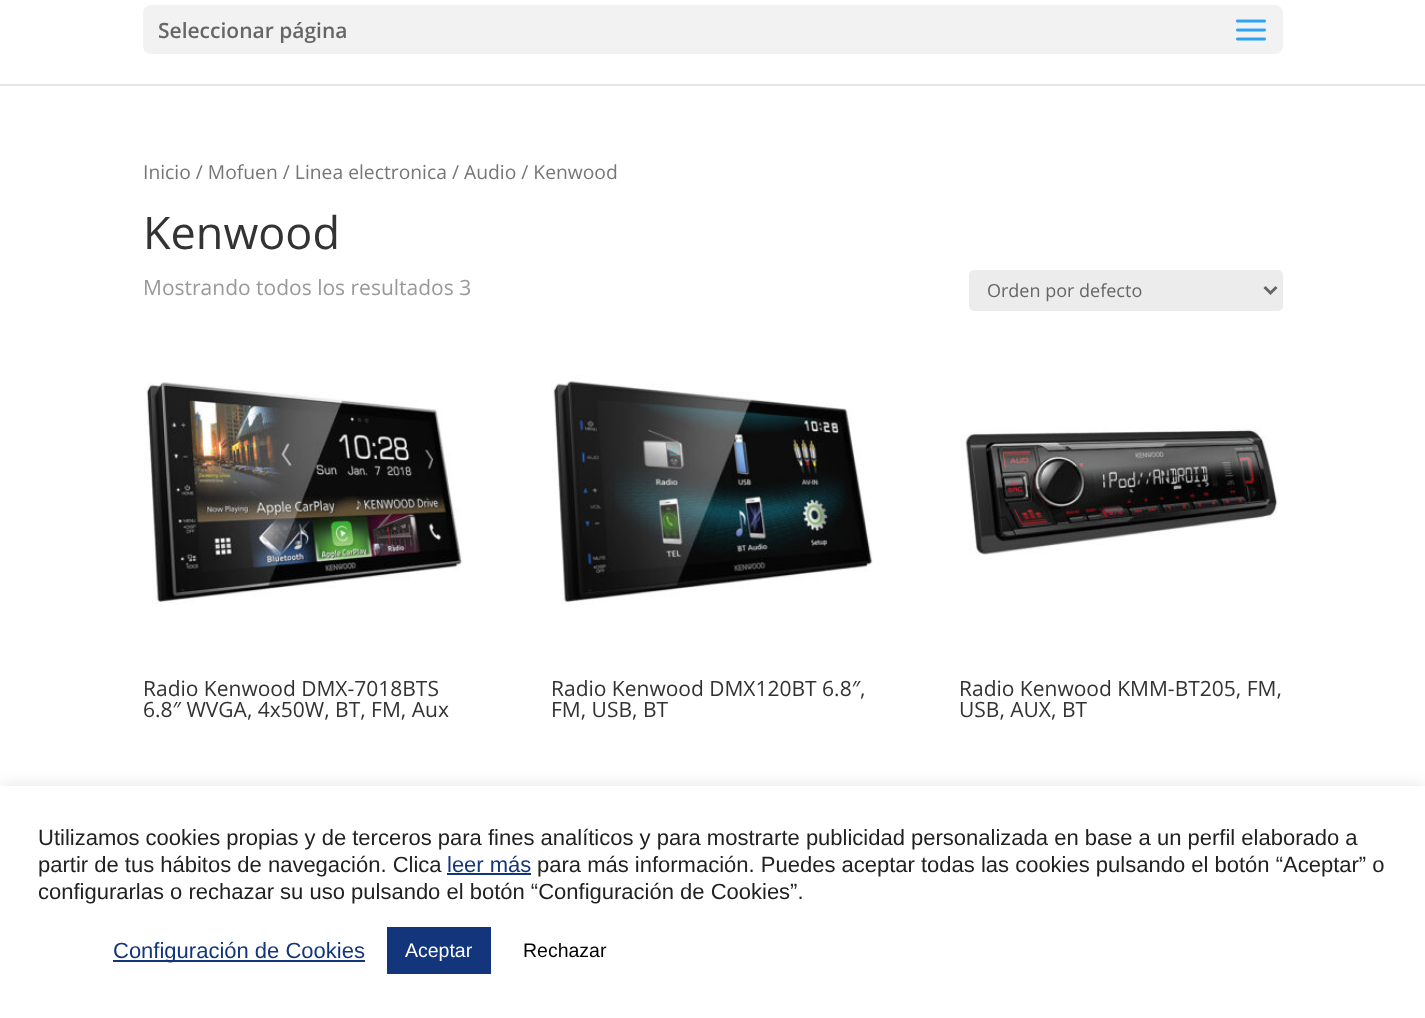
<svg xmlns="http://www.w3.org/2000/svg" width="1425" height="1018">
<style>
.a{font:600 21px Open Sans;fill:#666}
.b{font:19.3px Open Sans;fill:#767676}
.c{font:45px Open Sans;fill:#333}
.d{font:21px Open Sans;fill:#999}
.e{font:18px Open Sans;fill:#666}
.f{font:21px Open Sans;fill:#333}
.g{font:22px Liberation Sans;fill:#212121}
.h{font:22px Liberation Sans;fill:#12357b}
.i{font:19.5px Liberation Sans;fill:#fff}
.j{font:19.5px Liberation Sans;fill:#000}
</style>
<rect width="100%" height="100%" fill="#fff"/>
<path fill="#e6e6e6" d="M0 84h1425v2H0z"/>
<rect fill="#f2f2f2" x="143" y="5" width="1140" height="49" rx="8"/>
<image href="1.png" x="1236" y="19" width="30" height="22"/>
<rect fill="#ececec" x="969" y="270" width="314" height="41" rx="5"/>
<path fill="none" stroke="#666" stroke-width="3" d="M1264.5 287l6 6l6-6"/>
<image href="2.png" x="144" y="382" width="319" height="222"/>
<image href="3.png" x="551" y="375" width="322" height="230"/>
<image href="4.png" x="961" y="427" width="317" height="128"/>
<path fill="#acabab4d" filter="blur(7.5px)" d="M0 785h1425v232H0z"/>
<path fill="#fff" d="M0 786h1425v232H0z"/>
<path fill="#12357b" d="M447 873h84v2H447z"/>
<path fill="#12357b" d="M113 960h252v2H113z"/>
<path fill="#12357b" d="M387 927h104v47H387z"/>
<text class="a" x="158" y="38">Seleccionar página</text>
<text class="b" x="143" y="179">Inicio / Mofuen / Linea electronica / Audio / Kenwood</text>
<text class="c" x="143" y="249">Kenwood</text>
<text class="d" x="143" y="295">Mostrando todos los resultados 3</text>
<text class="e" x="987" y="297">Orden por defecto</text>
<text class="f" x="143" y="696">Radio Kenwood DMX-7018BTS</text>
<text class="f" x="143" y="717">6.8″ WVGA, 4x50W, BT, FM, Aux</text>
<text class="f" x="551" y="696">Radio Kenwood DMX120BT 6.8″,</text>
<text class="f" x="551" y="717">FM, USB, BT</text>
<text class="f" x="959" y="696">Radio Kenwood KMM-BT205, FM,</text>
<text class="f" x="959" y="717">USB, AUX, BT</text>
<text class="g" x="38" y="845">Utilizamos cookies propias y de terceros para fines analíticos y para mostrarte publicidad personalizada en base a un perfil elaborado a</text>
<text class="g" x="38" y="872">partir de tus hábitos de navegación. Clica</text>
<text class="h" x="447" y="872">leer más</text>
<text class="g" x="537" y="872">para más información. Puedes aceptar todas las cookies pulsando el botón “Aceptar” o</text>
<text class="g" x="38" y="899">configurarlas o rechazar su uso pulsando el botón “Configuración de Cookies”.</text>
<text class="h" x="113" y="958">Configuración de Cookies</text>
<text class="i" x="405" y="957">Aceptar</text>
<text class="j" x="523" y="957">Rechazar</text>
</svg>
